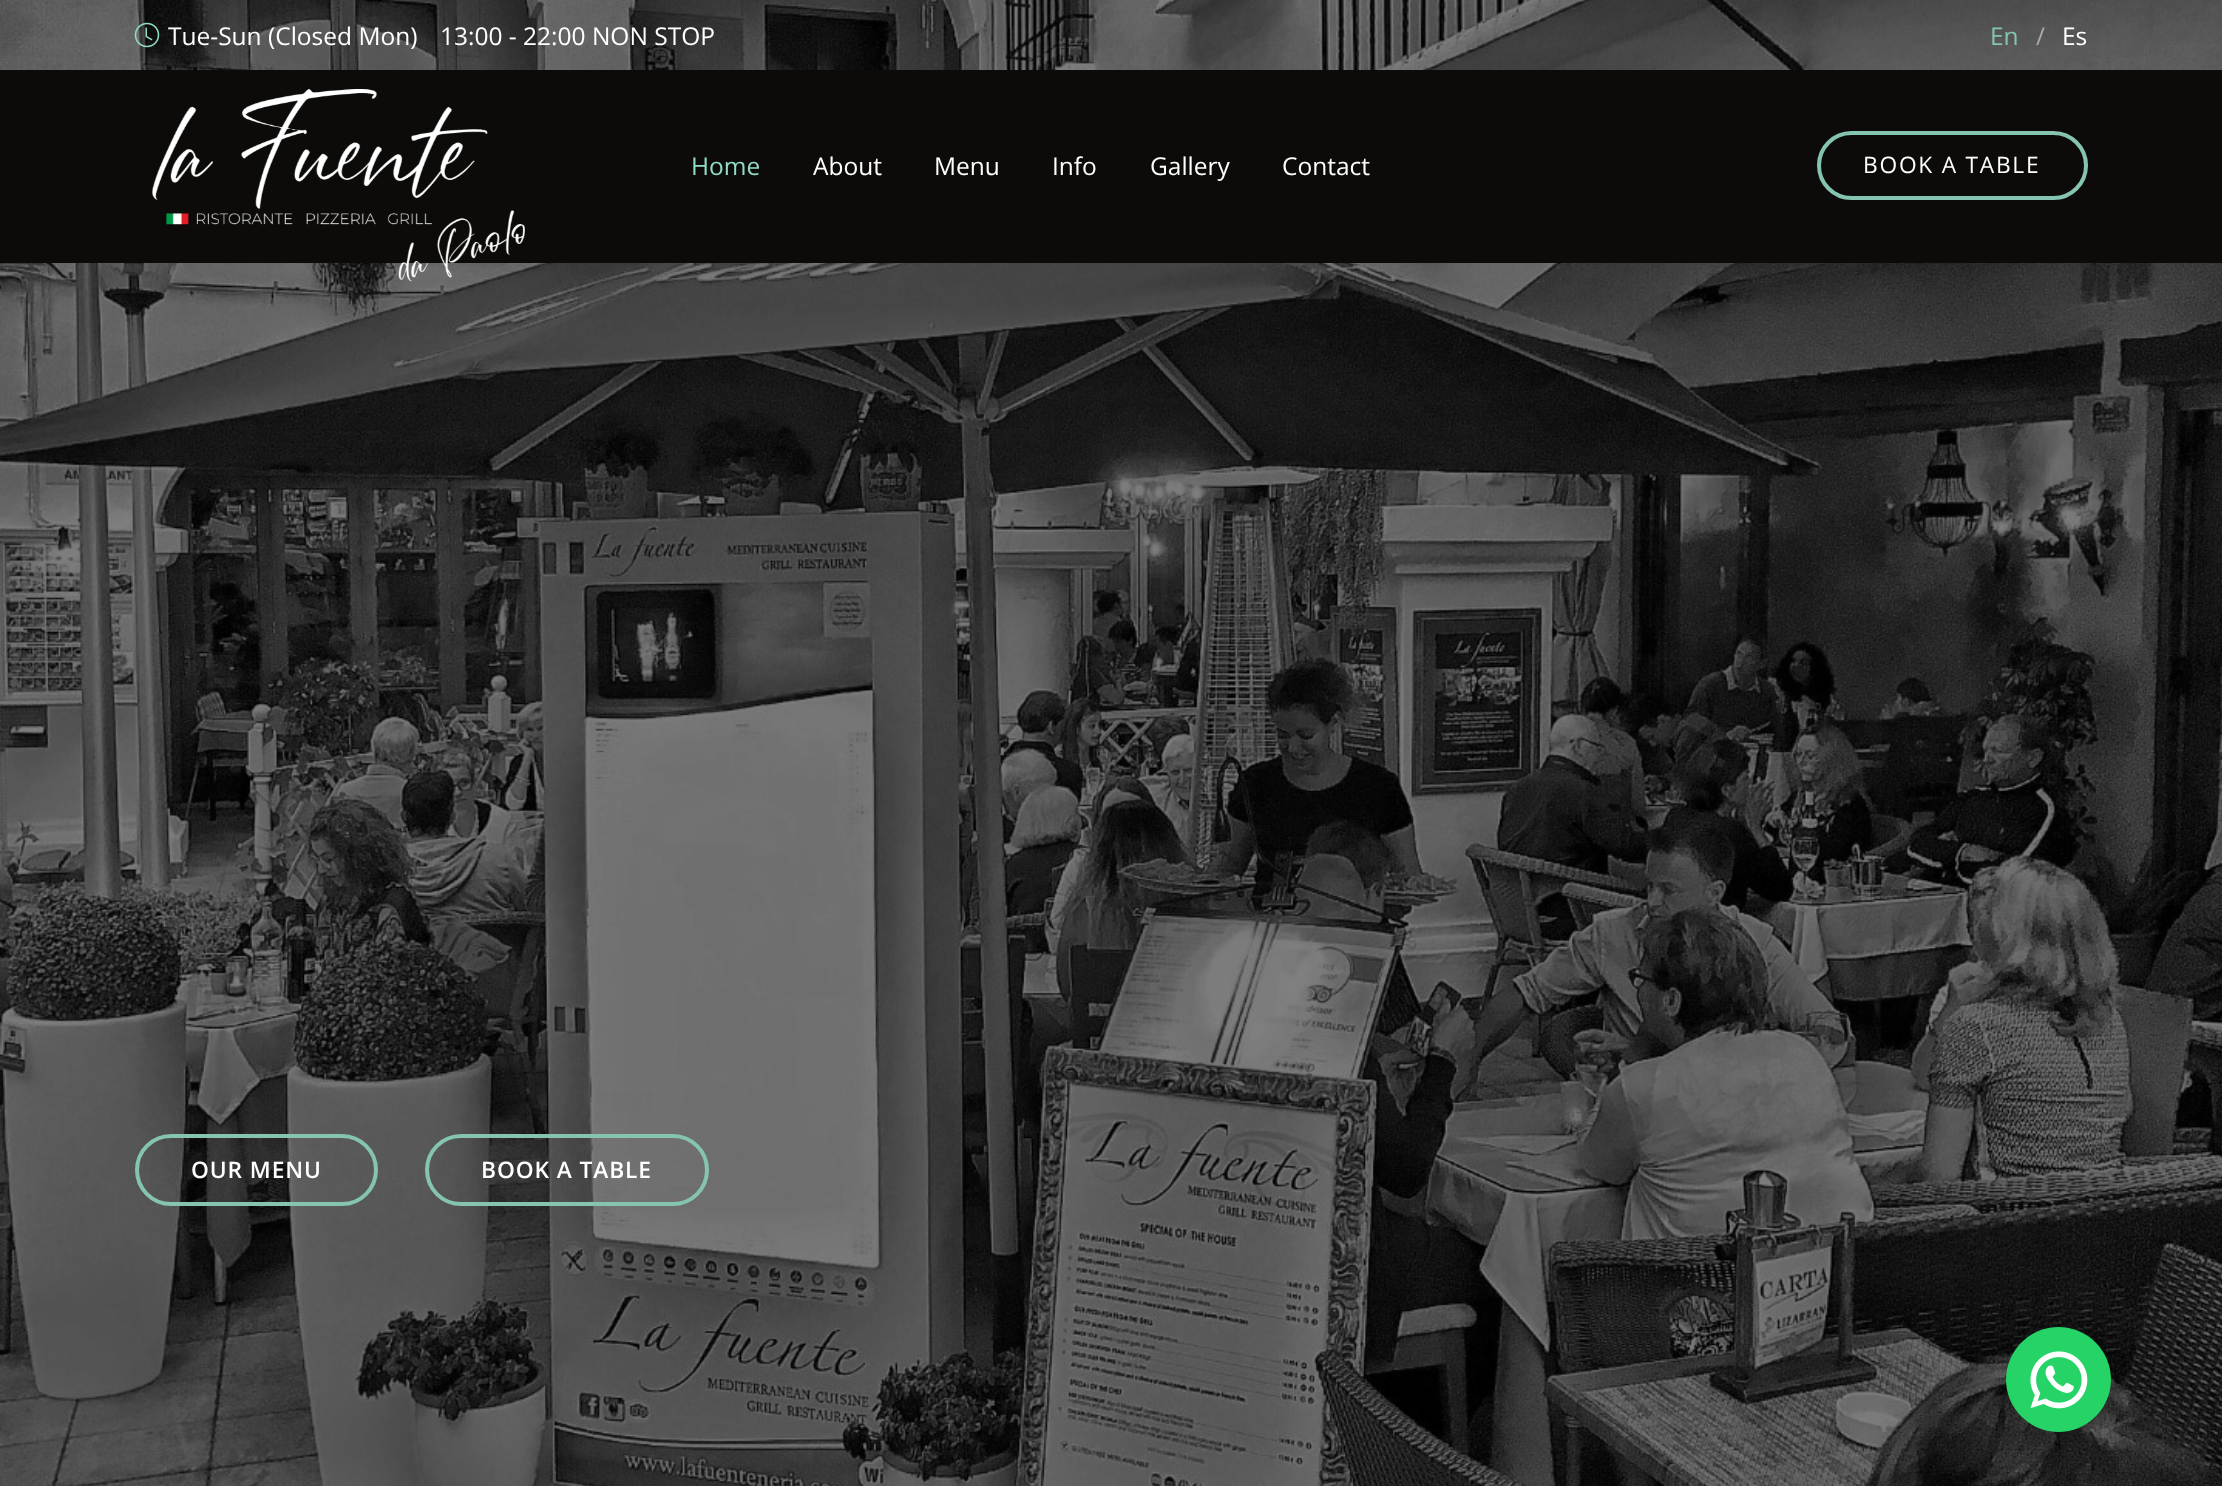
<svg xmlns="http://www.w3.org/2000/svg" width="2222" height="1486">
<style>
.a{font:24.5px Open Sans;fill:#fff}
.b{font:24.5px Open Sans;fill:#85c4b0}
.c{font:24.5px Open Sans;fill:#aaa}
.d{font:24.5px Open Sans;fill:#90dcc4}
.e{font:22.75px Open Sans;letter-spacing:1.75px;fill:#fff}
.f{font:600 22.75px Open Sans;letter-spacing:0.9px;fill:#fff}
</style>
<rect width="100%" height="100%" fill="#fff"/>
<image href="3.png" x="0" y="0" width="2222" height="1486"/>
<image href="1.png" x="134" y="22" width="26" height="26"/>
<path fill="#0c0b09" d="M0 70h2222v193H0z"/>
<image href="2.png" x="152" y="89" width="373" height="193"/>
<rect fill="none" stroke="#85c4b0" stroke-width="4" x="1819" y="133" width="267" height="65" rx="32.5"/>
<rect fill="none" stroke="#85c4b0" stroke-width="4" x="137" y="1136" width="239" height="68" rx="34"/>
<rect fill="none" stroke="#85c4b0" stroke-width="4" x="427" y="1136" width="280" height="68" rx="34"/>
<rect fill="#00000026" filter="blur(10.5px)" x="2006" y="1334" width="105" height="105" rx="52.5"/>
<circle fill="#25d366" cx="2058.5" cy="1379.5" r="52.5"/>
<image href="4.png" x="2030" y="1351" width="58" height="58"/>
<text class="a" x="168" y="45">Tue-Sun (Closed Mon)</text>
<text class="a" x="440" y="45">13:00 - 22:00 NON STOP</text>
<text class="b" x="1990" y="45">En</text>
<text class="c" x="2036" y="45">/</text>
<text class="a" x="2062" y="45">Es</text>
<text class="d" x="691" y="175">Home</text>
<text class="a" x="813" y="175">About</text>
<text class="a" x="934" y="175">Menu</text>
<text class="a" x="1052" y="175">Info</text>
<text class="a" x="1150" y="175">Gallery</text>
<text class="a" x="1282" y="175">Contact</text>
<text class="e" x="1863" y="173">BOOK A TABLE</text>
<text class="f" x="191" y="1178">OUR MENU</text>
<text class="f" x="481" y="1178">BOOK A TABLE</text>
</svg>
